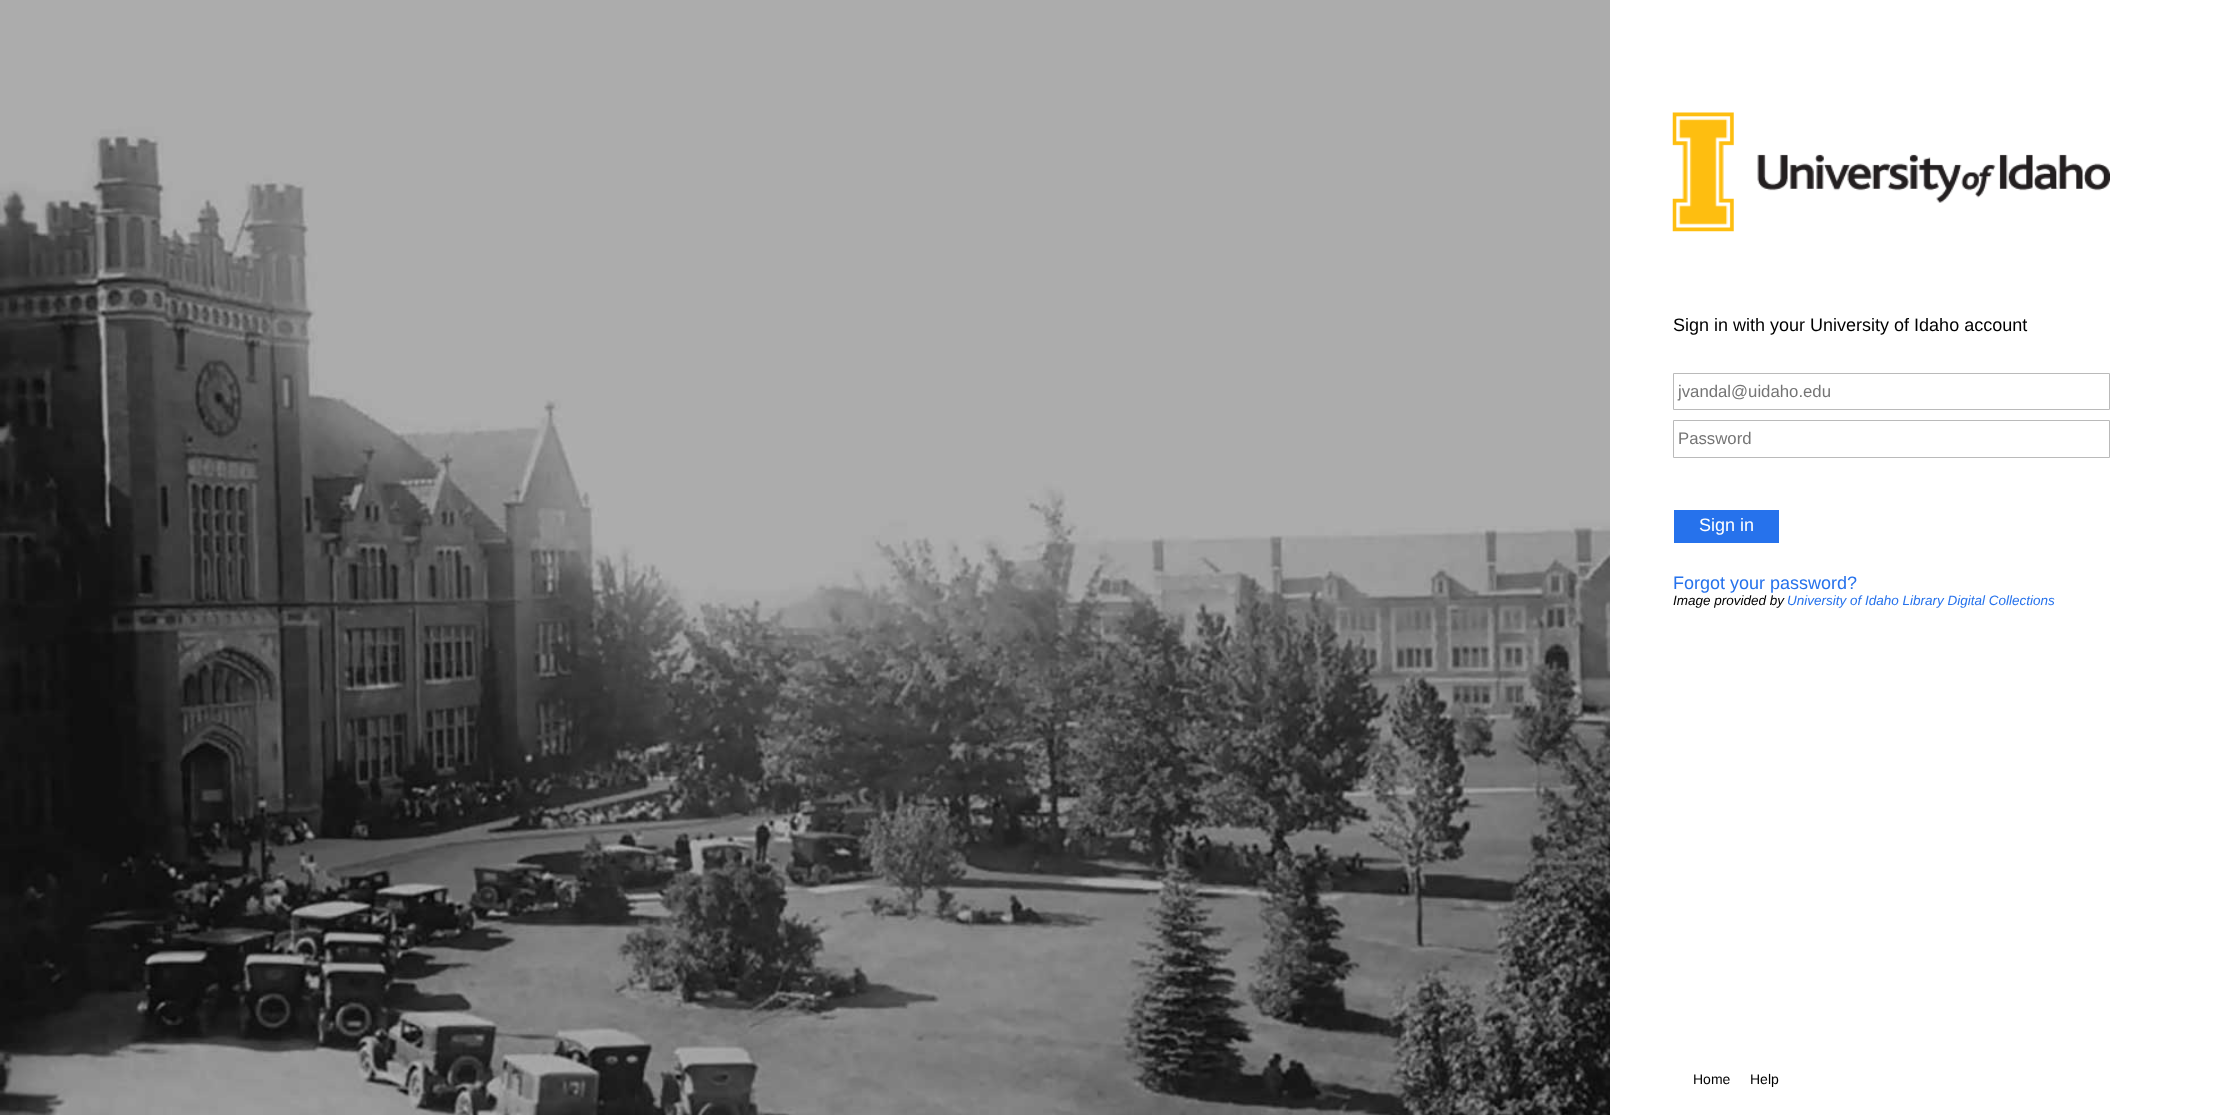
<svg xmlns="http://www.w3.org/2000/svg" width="2235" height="1115">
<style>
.a{font:18px Liberation Sans;fill:#000}
.b{font:16.75px Liberation Sans;fill:#757575}
.c{font:18px Liberation Sans;fill:#fff}
.d{font:18px Liberation Sans;fill:#2672ec}
.e{font:italic 13.5px Liberation Sans;fill:#000}
.f{font:italic 13.5px Liberation Sans;fill:#2672ec}
.g{font:14px Liberation Sans;fill:#000}
</style>
<rect width="100%" height="100%" fill="#fff"/>
<image href="1.png" x="0" y="0" width="1610" height="1115"/>
<image href="2.png" x="1672" y="112" width="438" height="120"/>
<path fill="none" stroke="#bababa" d="M1673.5 373.5h436v36H1673.5z"/>
<path fill="none" stroke="#bababa" d="M1673.5 420.5h436v37H1673.5z"/>
<path fill="#2672ec" d="M1674 510h105v33H1674z"/>
<text class="a" x="1673" y="331">Sign in with your University of Idaho account</text>
<text class="b" x="1678" y="397">jvandal@uidaho.edu</text>
<text class="b" x="1678" y="444">Password</text>
<text class="c" x="1699" y="531">Sign in</text>
<text class="d" x="1673" y="589">Forgot your password?</text>
<text class="e" x="1673" y="605">Image provided by</text>
<text class="f" x="1787" y="605">University of Idaho Library Digital Collections</text>
<text class="g" x="1693" y="1084">Home</text>
<text class="g" x="1750" y="1084">Help</text>
</svg>
